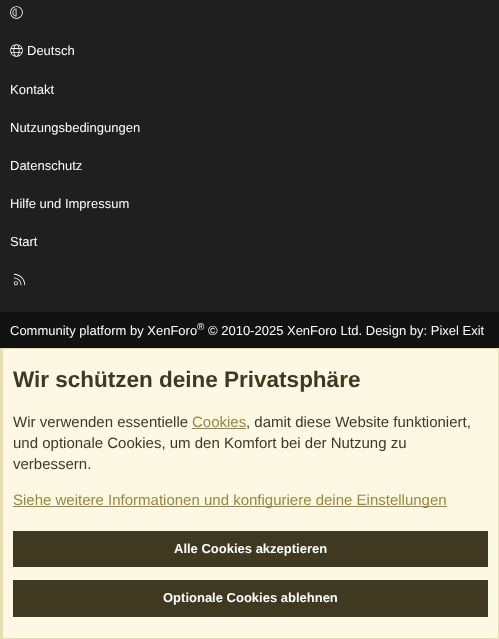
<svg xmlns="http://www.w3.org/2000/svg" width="499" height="639">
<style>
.a{font:13px Liberation Sans;fill:#fff}
.b{font:10px Liberation Sans;fill:#fff}
.c{font:bold 22.5px Liberation Sans;fill:#3f3922}
.d{font:15px Liberation Sans;fill:#3f3922}
.e{font:15px Liberation Sans;fill:#99883b}
.f{font:bold 13px Liberation Sans;fill:#fff}
</style>
<rect width="100%" height="100%" fill="#1f1f1f"/>
<image href="1.png" x="10" y="6" width="13" height="13"/>
<image href="2.png" x="10" y="44" width="13" height="13"/>
<image href="3.png" x="13" y="273" width="13" height="13"/>
<path fill="#121212" d="M0 312h499v36H0z"/>
<path fill="#fcf8e3" d="M3 349h495v289H3z"/>
<path fill="#e7deb1" d="M0 348h499v1H0z"/>
<path fill="#e7deb1" d="M498 348h1v291H498z"/>
<path fill="#e7deb1" d="M0 638h499v1H0z"/>
<path fill="#e7deb1" d="M0 348h3v291H0z"/>
<path fill="#99883b" d="M192 428h54v1H192z"/>
<path fill="#99883b" d="M13 506h434v1H13z"/>
<path fill="#3f3922" d="M13 531h475v36H13z"/>
<path fill="#3f3922" d="M13 580h475v37H13z"/>
<text class="a" x="27" y="55">Deutsch</text>
<text class="a" x="10" y="94">Kontakt</text>
<text class="a" x="10" y="132">Nutzungsbedingungen</text>
<text class="a" x="10" y="170">Datenschutz</text>
<text class="a" x="10" y="208">Hilfe und Impressum</text>
<text class="a" x="10" y="246">Start</text>
<text class="a" x="10" y="335">Community platform by XenForo</text>
<text class="b" x="197" y="330">®</text>
<text class="a" x="208" y="335">© 2010-2025 XenForo Ltd. Design by: Pixel Exit</text>
<text class="c" x="13" y="387">Wir schützen deine Privatsphäre</text>
<text class="d" x="13" y="427">Wir verwenden essentielle</text>
<text class="e" x="192" y="427">Cookies</text>
<text class="d" x="246" y="427">, damit diese Website funktioniert,</text>
<text class="d" x="13" y="448">und optionale Cookies, um den Komfort bei der Nutzung zu</text>
<text class="d" x="13" y="469">verbessern.</text>
<text class="e" x="13" y="505">Siehe weitere Informationen und konfiguriere deine Einstellungen</text>
<text class="f" x="174" y="553">Alle Cookies akzeptieren</text>
<text class="f" x="163" y="602">Optionale Cookies ablehnen</text>
</svg>
